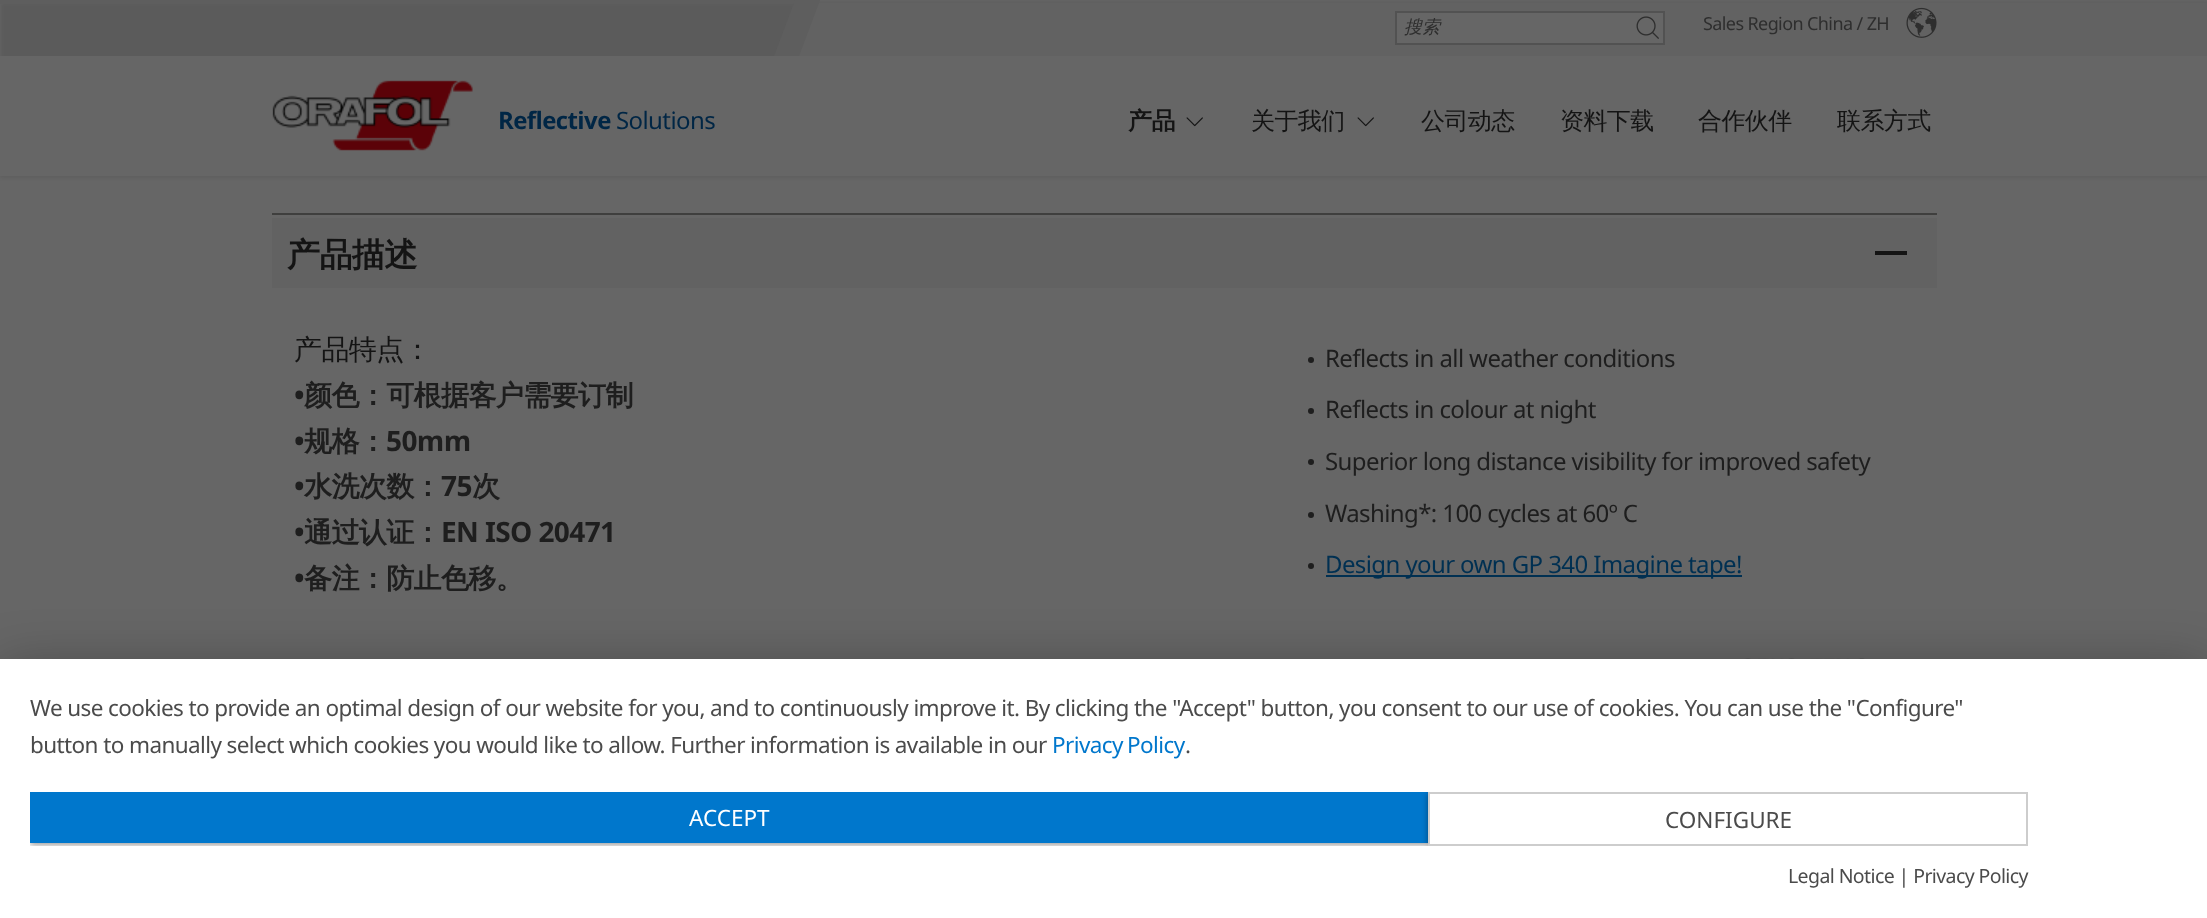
<svg xmlns="http://www.w3.org/2000/svg" width="2207" height="918">
<style>
.a{font:italic 500 18px WenQuanYi Zen Hei;fill:#2e2e2e}
.b{font:18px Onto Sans;letter-spacing:-0.6px;fill:#2e2e2e}
.c{font:bold 24px Onto Sans;letter-spacing:-0.6px;fill:#002645}
.d{font:24px Onto Sans;letter-spacing:-0.6px;fill:#002645}
.e{font:bold 24px WenQuanYi Zen Hei;letter-spacing:-0.6px;fill:#141414}
.f{font:500 24px WenQuanYi Zen Hei;letter-spacing:-0.6px;fill:#141414}
.g{font:bold 33px WenQuanYi Zen Hei;letter-spacing:-0.6px;fill:#141414}
.h{font:500 28px WenQuanYi Zen Hei;letter-spacing:-0.6px;fill:#141414}
.i{font:bold 28px Onto Sans;letter-spacing:-0.6px;fill:#1e1e1e}
.j{font:bold 28px WenQuanYi Zen Hei;letter-spacing:-0.6px;fill:#1e1e1e}
.k{font:24px Onto Sans;letter-spacing:-0.6px;fill:#1e1e1e}
.l{font:24px Onto Sans;letter-spacing:-0.6px;fill:#003052}
.m{font:22.5px Onto Sans;letter-spacing:-0.6px;fill:#4b4b4b}
.n{font:22.5px Onto Sans;letter-spacing:-0.6px;fill:#07c}
.o{font:22.5px Onto Sans;fill:#fff}
.p{font:22.5px Onto Sans;fill:#4b4b4b}
.q{font:19.5px Onto Sans;letter-spacing:-0.6px;fill:#4b4b4b}
</style>
<defs>
<clipPath id="clip1"><path d="M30 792h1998v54H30z"/></clipPath>
</defs>
<rect width="100%" height="100%" fill="#666"/>
<path fill="#0000001a" filter="blur(2px)" d="M0 2h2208v175H0z"/>
<path fill="#666" d="M0 56h2207v120H0z"/>
<path fill="#626262" d="M799 3h1408v53H799z"/>
<path fill="#5e5e5e" d="M0 0h795v4H0z"/>
<path fill="#5e5e5e" d="M795 0h25l-21 56h-25z"/>
<path fill="#666" stroke="#525252" stroke-width="2" d="M1396 12h268v32H1396z"/>
<image href="1.png" x="1636" y="16" width="23" height="23"/>
<image href="2.png" x="1906" y="7" width="31" height="31"/>
<image href="3.png" x="272" y="80" width="201" height="71"/>
<image href="4.png" x="1186" y="117" width="17" height="10"/>
<image href="4.png" x="1357" y="117" width="17" height="10"/>
<path fill="#3f3f3e" d="M272 213h1665v2H272z"/>
<path fill="#626262" d="M272 218h1665v70H272z"/>
<path fill="#141414" d="M1875 251h32v4H1875z"/>
<circle fill="#1e1e1e" cx="1311" cy="360" r="3"/>
<circle fill="#1e1e1e" cx="1311" cy="411" r="3"/>
<circle fill="#1e1e1e" cx="1311" cy="462" r="3"/>
<circle fill="#1e1e1e" cx="1311" cy="515" r="3"/>
<circle fill="#1e1e1e" cx="1311" cy="566" r="3"/>
<path fill="#003052" d="M1326 575h416v2H1326z"/>
<image href="5.png" x="1708" y="658" width="204" height="1"/>
<path fill="#0000004d" filter="blur(27px)" d="M0 668h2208v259H0z"/>
<path fill="#fff" d="M0 659h2207v259H0z"/>
<g clip-path="url(#clip1)">
<path fill="#00000066" filter="blur(3px)" d="M30 794h1398v51H30z"/>
</g>
<path fill="#07c" d="M30 792h1398v51H30z"/>
<g clip-path="url(#clip1)">
<path fill="#00000066" filter="blur(3px)" d="M1428 794h600v54H1428z"/>
</g>
<path fill="#fff" stroke="#cdcdcd" stroke-width="2" d="M1429 793h598v52H1429z"/>
<text class="a" x="1404" y="33">搜索</text>
<text class="b" x="1703" y="30">Sales Region China / ZH</text>
<text class="c" x="498" y="129">Reflective</text>
<text class="d" x="616" y="129">Solutions</text>
<text class="e" x="1128" y="129">产品</text>
<text class="f" x="1251" y="129">关于我们</text>
<text class="f" x="1421" y="129">公司动态</text>
<text class="f" x="1560" y="129">资料下载</text>
<text class="f" x="1698" y="129">合作伙伴</text>
<text class="f" x="1837" y="129">联系方式</text>
<text class="g" x="287" y="266">产品描述</text>
<text class="h" x="294" y="359">产品特点：</text>
<text class="i" x="294" y="405">•</text>
<text class="j" x="304" y="405">颜色：可根据客户需要订制</text>
<text class="i" x="294" y="451">•</text>
<text class="j" x="304" y="451">规格：</text>
<text class="i" x="386" y="451">50mm</text>
<text class="i" x="294" y="496">•</text>
<text class="j" x="304" y="496">水洗次数：</text>
<text class="i" x="441" y="496">75</text>
<text class="j" x="472" y="496">次</text>
<text class="i" x="294" y="542">•</text>
<text class="j" x="304" y="542">通过认证：</text>
<text class="i" x="441" y="542">EN ISO 20471</text>
<text class="i" x="294" y="588">•</text>
<text class="j" x="304" y="588">备注：防止色移。</text>
<text class="k" x="1325" y="367">Reflects in all weather conditions</text>
<text class="k" x="1325" y="418">Reflects in colour at night</text>
<text class="k" x="1325" y="470">Superior long distance visibility for improved safety</text>
<text class="k" x="1325" y="522">Washing*: 100 cycles at 60º C</text>
<text class="l" x="1325" y="573">Design your own GP 340 Imagine tape!</text>
<text class="m" x="30" y="716">We use cookies to provide an optimal design of our website for you, and to continuously improve it. By clicking the "Accept" button, you consent to our use of cookies. You can use the "Configure"</text>
<text class="m" x="30" y="753">button to manually select which cookies you would like to allow. Further information is available in our</text>
<text class="n" x="1052" y="753" word-spacing="-1">Privacy Policy</text>
<text class="m" x="1185" y="753">.</text>
<text class="o" x="689" y="826">ACCEPT</text>
<text class="p" x="1665" y="828">CONFIGURE</text>
<text class="q" x="1788" y="883">Legal Notice | Privacy Policy</text>
</svg>
